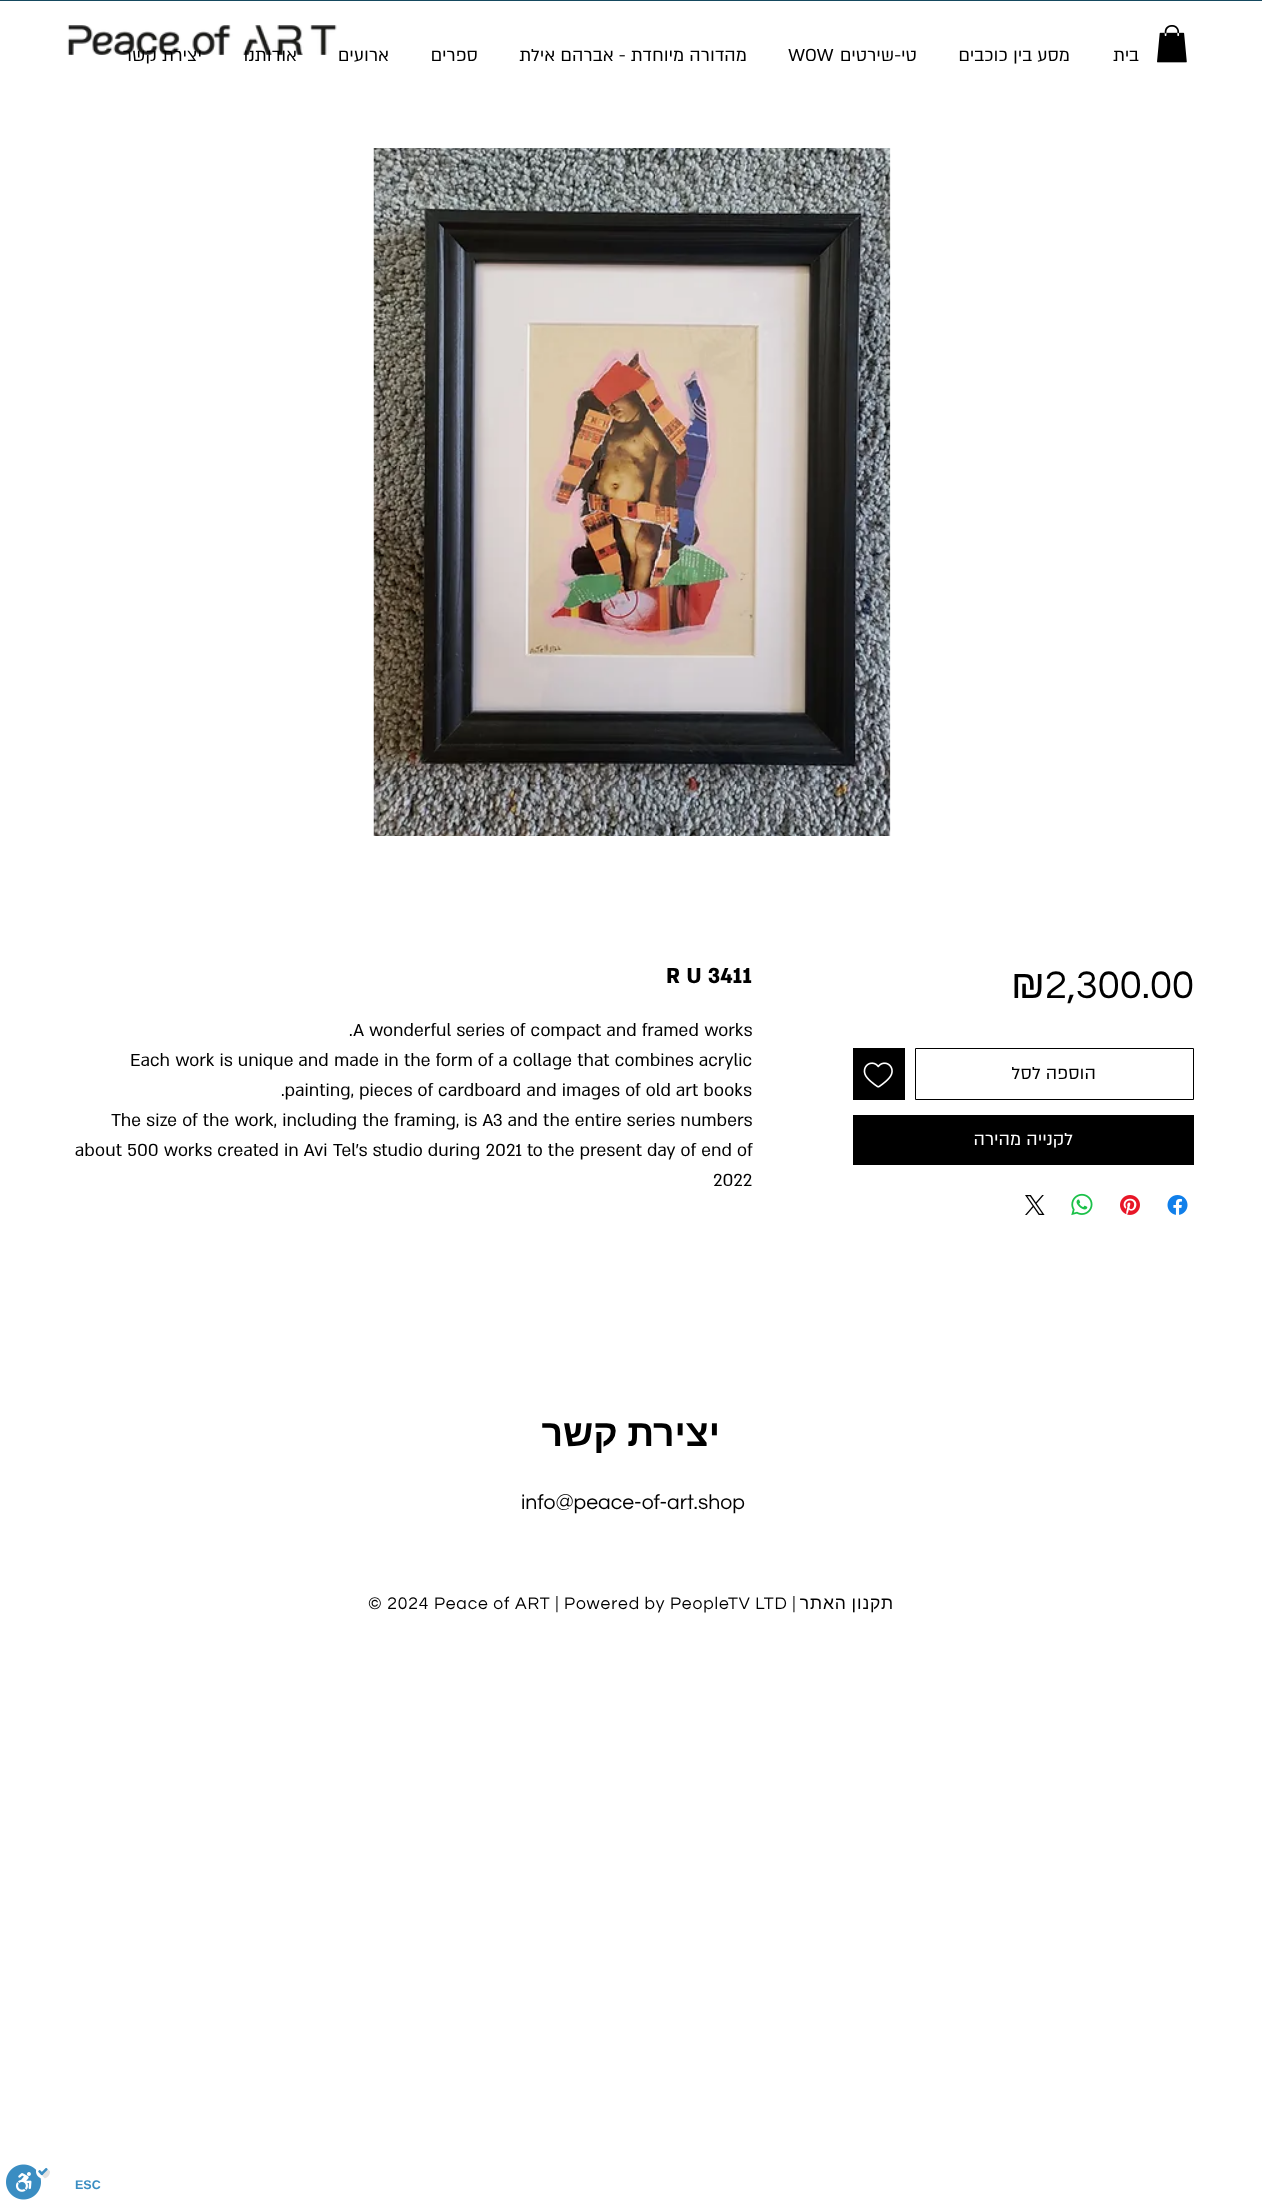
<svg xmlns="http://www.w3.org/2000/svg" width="1262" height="2203">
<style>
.a{font:20px 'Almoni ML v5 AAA';direction:rtl;fill:#000}
.b{font:20px 'Almoni ML v5 AAA';fill:#000}
.c{font:bold 25px 'Almoni ML v5 AAA';fill:#000}
.d{font:40px Liberation Sans;fill:#000}
.e{font:40px Questrial;fill:#000}
.f{font:20px 'Almoni ML v5 AAA';direction:rtl;fill:#fff}
.g{font:bold 37.5px Liberation Sans;direction:rtl;fill:#000}
.h{font:21.25px Questrial;fill:#000}
.i{font:17.5px Questrial;letter-spacing:0.9px;fill:#000}
.j{font:17.5px Liberation Sans;letter-spacing:0.9px;direction:rtl;fill:#000}
.k{font:bold 12.5px Liberation Sans;fill:#3a8dc2}
</style>
<rect width="100%" height="100%" fill="#fff"/>
<image href="1.png" x="67" y="25" width="270" height="30"/>
<image href="2.png" x="1157" y="25" width="30" height="38"/>
<image href="3.png" x="373" y="148" width="518" height="688"/>
<path fill="#000" d="M853 1048h52v52H853z"/>
<image href="4.png" x="863" y="1062" width="30" height="26"/>
<path fill="none" stroke="#000" d="M915.5 1048.5h278v51H915.5z"/>
<path fill="#000" d="M853 1115h341v50H853z"/>
<image href="5.png" x="1025" y="1195" width="20" height="20"/>
<image href="6.png" x="1071" y="1193" width="22" height="23"/>
<image href="7.png" x="1120" y="1195" width="20" height="20"/>
<image href="8.png" x="1167" y="1195" width="21" height="20"/>
<path fill="#15495f" d="M0 0h1262v1H0z"/>
<image href="9.png" x="6" y="2164" width="44" height="36"/>
<text class="a" x="202" y="61">יצירת קשר</text>
<text class="a" x="297" y="61">אודותנו</text>
<text class="a" x="389" y="61">ארועים</text>
<text class="a" x="478" y="61">ספרים</text>
<text class="a" x="747" y="61">מהדורה מיוחדת - אברהם אילת</text>
<text class="b" x="788" y="61">WOW</text>
<text class="a" x="917" y="61">טי-שירטים</text>
<text class="a" x="1070" y="61">מסע בין כוכבים</text>
<text class="a" x="1139" y="61">בית</text>
<text class="c" x="666" y="983">R U 3411</text>
<text class="b" x="349" y="1036">.A wonderful series of compact and framed works</text>
<text class="b" x="130" y="1066">Each work is unique and made in the form of a collage that combines acrylic</text>
<text class="b" x="281" y="1096">.painting, pieces of cardboard and images of old art books</text>
<text class="b" x="111" y="1126">The size of the work, including the framing, is A3 and the entire series numbers</text>
<text class="b" x="75" y="1156">about 500 works created in Avi Tel's studio during 2021 to the present day of end of</text>
<text class="b" x="713" y="1186">2022</text>
<text class="d" x="1011" y="998">₪</text>
<text class="e" x="1045" y="998">2,300.00</text>
<text class="a" x="1096" y="1079">הוספה לסל</text>
<text class="f" x="1073" y="1145">לקנייה מהירה</text>
<text class="g" x="720" y="1446" word-spacing="-1">יצירת קשר</text>
<text class="h" x="521" y="1509">info@peace-of-art.shop</text>
<text class="i" x="368" y="1609">© 2024 Peace of ART | Powered by PeopleTV LTD |</text>
<text class="j" x="894" y="1609" word-spacing="-1">תקנון האתר</text>
<text class="k" x="75" y="2189">ESC</text>
</svg>
